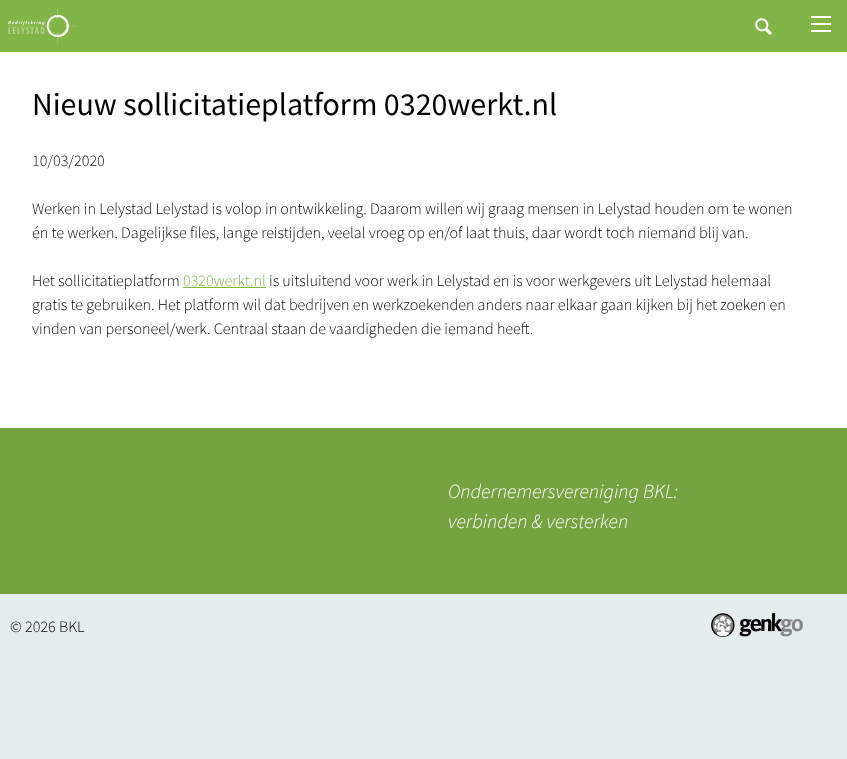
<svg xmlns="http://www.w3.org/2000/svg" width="847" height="759">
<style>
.a{font:32px Source Sans Pro;fill:#000}
.b{font:300 16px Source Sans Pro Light;fill:#000}
.c{font:300 16px Source Sans Pro Light;fill:#82b548}
.d{font:italic 300 20px Source Sans Pro Light;fill:#fff}
</style>
<rect width="100%" height="100%" fill="#e5ecee"/>
<path fill="#82b548" d="M0 0h847v52H0z"/>
<path fill="#fff" d="M811 23h20v2H811z"/>
<path fill="#fff" d="M811 16h20v2H811z"/>
<path fill="#fff" d="M811 30h20v2H811z"/>
<image href="1.png" x="8" y="8" width="68" height="36"/>
<image href="2.png" x="755" y="18" width="17" height="17"/>
<path fill="#fff" d="M0 52h847v376H0z"/>
<path fill="#82b548" d="M183 287h83v1H183z"/>
<path fill="#75a341" d="M0 428h847v166H0z"/>
<image href="3.png" x="711" y="613" width="92" height="24"/>
<text class="a" x="32" y="115">Nieuw sollicitatieplatform 0320werkt.nl</text>
<text class="b" x="32" y="166">10/03/2020</text>
<text class="b" x="32" y="214">Werken in Lelystad Lelystad is volop in ontwikkeling. Daarom willen wij graag mensen in Lelystad houden om te wonen</text>
<text class="b" x="32" y="238">én te werken. Dagelijkse files, lange reistijden, veelal vroeg op en/of laat thuis, daar wordt toch niemand blij van.</text>
<text class="b" x="32" y="286">Het sollicitatieplatform</text>
<text class="c" x="183" y="286">0320werkt.nl</text>
<text class="b" x="269" y="286">is uitsluitend voor werk in Lelystad en is voor werkgevers uit Lelystad helemaal</text>
<text class="b" x="32" y="310">gratis te gebruiken. Het platform wil dat bedrijven en werkzoekenden anders naar elkaar gaan kijken bij het zoeken en</text>
<text class="b" x="32" y="334">vinden van personeel/werk. Centraal staan de vaardigheden die iemand heeft.</text>
<text class="d" x="448" y="498">Ondernemersvereniging BKL:</text>
<text class="d" x="448" y="528">verbinden &amp; versterken</text>
<text class="b" x="10" y="632">© 2026 BKL</text>
</svg>
